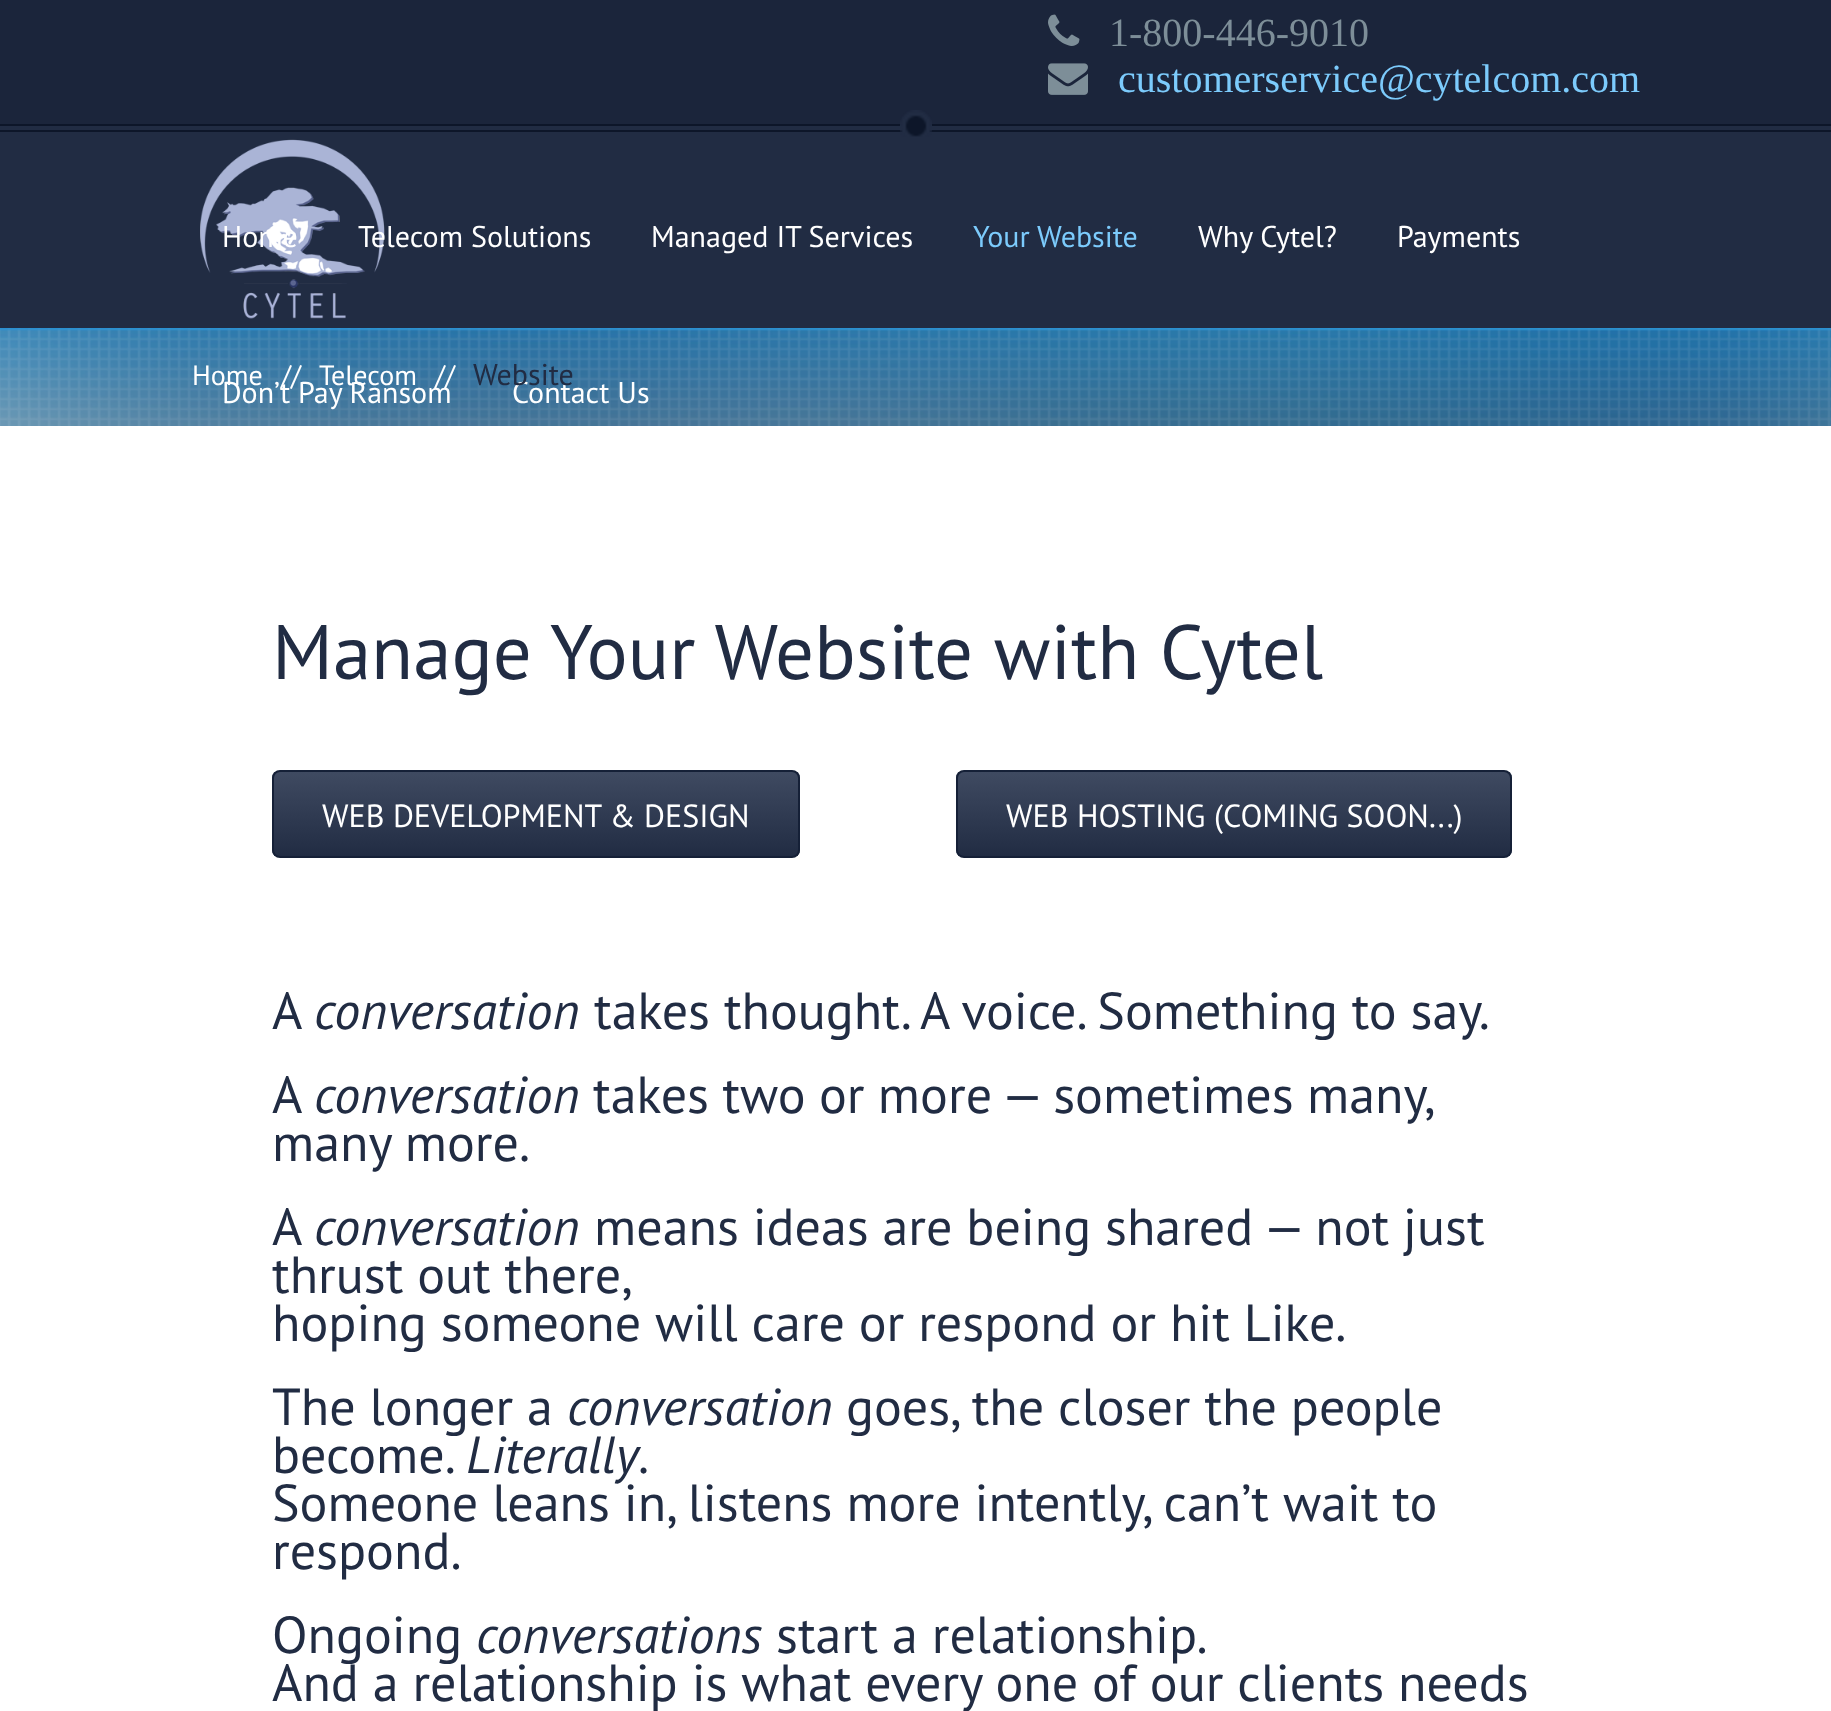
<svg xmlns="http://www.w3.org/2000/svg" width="1831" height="1711">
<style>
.a{font:40px Liberation Serif;fill:#7d8e98}
.b{font:40px Liberation Serif;fill:#7ccbfc}
.c{font:30px PT Sans;fill:#fff}
.d{font:30px PT Sans;fill:#7ccbfc}
.e{font:28px PT Sans;fill:#fff}
.f{font:30px PT Sans;fill:#212c43}
.g{font:77px PT Sans;fill:#212c43}
.h{font:32px PT Sans;fill:#fff}
.i{font:52px PT Sans;fill:#212c43}
.j{font:italic 52px PT Sans;fill:#212c43}
</style>
<defs>
<clipPath id="clip1"><rect x="272" y="770" width="528" height="88" rx="8"/></clipPath>
<linearGradient id="g1" gradientUnits="userSpaceOnUse" x1="536" y1="772" x2="536" y2="856"><stop offset="0" stop-color="#3f4a61"/><stop offset="1" stop-color="#212c43"/></linearGradient>
<clipPath id="clip2"><rect x="956" y="770" width="556" height="88" rx="8"/></clipPath>
<linearGradient id="g2" gradientUnits="userSpaceOnUse" x1="1234" y1="772" x2="1234" y2="856"><stop offset="0" stop-color="#3f4a61"/><stop offset="1" stop-color="#212c43"/></linearGradient>
</defs>
<rect width="100%" height="100%" fill="#fff"/>
<path fill="#1b253b" d="M0 0h1831v124H0z"/>
<image href="1.png" x="1048" y="14" width="32" height="32"/>
<image href="2.png" x="1048" y="63" width="40" height="32"/>
<path fill="#212c43" d="M0 126h1831v202H0z"/>
<path fill="#0d1629" d="M0 124h1831v2H0z"/>
<path fill="#0d1629" d="M0 130h1831v2H0z"/>
<image href="3.png" x="900" y="110" width="32" height="27"/>
<image href="4.png" x="200" y="139" width="185" height="180"/>
<image href="5.png" x="0" y="328" width="1831" height="98"/>
<image href="6.png" x="0" y="328" width="1831" height="98"/>
<g clip-path="url(#clip1)">
<path fill="url(#g1)" d="M272 772h528v84H272z"/>
</g>
<rect fill="none" stroke="#152037" stroke-width="2" x="273" y="771" width="526" height="86" rx="7"/>
<g clip-path="url(#clip2)">
<path fill="url(#g2)" d="M956 772h556v84H956z"/>
</g>
<rect fill="none" stroke="#152037" stroke-width="2" x="957" y="771" width="554" height="86" rx="7"/>
<text class="a" x="1109" y="46">1-800-446-9010</text>
<text class="b" x="1118" y="92">customerservice@cytelcom.com</text>
<text class="c" x="222" y="247">Home</text>
<text class="c" x="358" y="247">Telecom Solutions</text>
<text class="c" x="651" y="247">Managed IT Services</text>
<text class="d" x="973" y="247">Your Website</text>
<text class="c" x="1198" y="247">Why Cytel?</text>
<text class="c" x="1397" y="247">Payments</text>
<text class="c" x="222" y="403">Don’t Pay Ransom</text>
<text class="c" x="512" y="403">Contact Us</text>
<text class="e" x="192" y="385">Home</text>
<text class="e" x="281" y="385">//</text>
<text class="e" x="319" y="385">Telecom</text>
<text class="e" x="435" y="385">//</text>
<text class="f" x="473" y="385">Website</text>
<text class="g" x="272" y="679">Manage Your Website with Cytel</text>
<text class="h" x="322" y="827">WEB DEVELOPMENT &amp; DESIGN</text>
<text class="h" x="1006" y="827">WEB HOSTING (COMING SOON...)</text>
<text class="i" x="272" y="1029">A</text>
<text class="j" x="314" y="1029">conversation</text>
<text class="i" x="594" y="1029">takes thought. A voice. Something to say.</text>
<text class="i" x="272" y="1113">A</text>
<text class="j" x="314" y="1113">conversation</text>
<text class="i" x="593" y="1113" word-spacing="-0.5">takes two or more — sometimes many,</text>
<text class="i" x="272" y="1161">many more.</text>
<text class="i" x="272" y="1245">A</text>
<text class="j" x="314" y="1245">conversation</text>
<text class="i" x="594" y="1245">means ideas are being shared — not just</text>
<text class="i" x="272" y="1293">thrust out there,</text>
<text class="i" x="272" y="1341">hoping someone will care or respond or hit Like.</text>
<text class="i" x="272" y="1425">The longer a</text>
<text class="j" x="567" y="1425">conversation</text>
<text class="i" x="846" y="1425">goes, the closer the people</text>
<text class="i" x="272" y="1473">become.</text>
<text class="j" x="466" y="1473">Literally</text>
<text class="i" x="638" y="1473">.</text>
<text class="i" x="272" y="1521">Someone leans in, listens more intently, can’t wait to</text>
<text class="i" x="272" y="1569">respond.</text>
<text class="i" x="272" y="1653">Ongoing</text>
<text class="j" x="476" y="1653">conversations</text>
<text class="i" x="776" y="1653">start a relationship.</text>
<text class="i" x="272" y="1701">And a relationship is what every one of our clients needs</text>
</svg>
